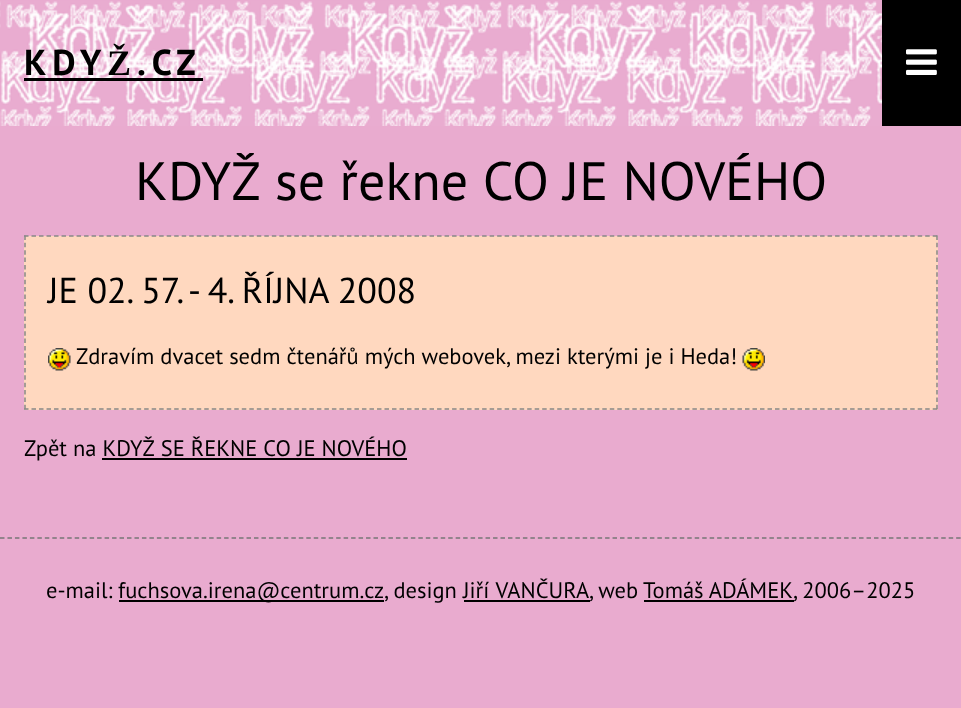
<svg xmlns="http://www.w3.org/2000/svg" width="961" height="708">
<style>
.a{font:bold 36px PT Sans;letter-spacing:6px;fill:#000}
.b{font:bold 36px Liberation Serif;letter-spacing:6px;fill:#000}
.c{font:54px PT Sans;fill:#000}
.d{font:36px PT Sans;fill:#000}
.e{font:22.5px PT Sans;fill:#000}
</style>
<rect width="100%" height="100%" fill="#e9abcf"/>
<image href="1.png" x="0" y="0" width="882" height="126"/>
<path fill="#000" d="M24 78h179v3H24z"/>
<path fill="#000" d="M882 0h79v126H882z"/>
<image href="2.png" x="906" y="49" width="31" height="26"/>
<path fill="#ffd8bf" d="M24 236h914v174H24z"/>
<path fill="none" stroke="#888" stroke-width="1.5" stroke-dasharray="4.5 3.01" d="M24 236h913.5"/>
<path fill="none" stroke="#888" stroke-width="1.5" stroke-dasharray="4.5 2.86" d="M937 235.5v174"/>
<path fill="none" stroke="#888" stroke-width="1.5" stroke-dasharray="4.5 3.01" d="M24 409h913.5"/>
<path fill="none" stroke="#888" stroke-width="1.5" stroke-dasharray="4.5 2.86" d="M25 235.5v174"/>
<image href="3.png" x="48" y="348" width="23" height="23"/>
<image href="4.png" x="742" y="348" width="23" height="23"/>
<path fill="#000" d="M102 458h305v2H102z"/>
<path fill="none" stroke="#777" stroke-width="1.5" stroke-dasharray="4.5 2.97" d="M0 538h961.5"/>
<path fill="#000" d="M119 600h265v2H119z"/>
<path fill="#000" d="M464 600h126v2H464z"/>
<path fill="#000" d="M644 600h150v2H644z"/>
<text class="a" x="24" y="75">KDY</text>
<text class="b" x="107" y="75">Ž</text>
<text class="a" x="137" y="75">.CZ</text>
<text class="c" x="135" y="200">KDYŽ se řekne CO JE NOVÉHO</text>
<text class="d" x="48" y="303">JE 02. 57. - 4. ŘÍJNA 2008</text>
<text class="e" x="76" y="364">Zdravím dvacet sedm čtenářů mých webovek, mezi kterými je i Heda!</text>
<text class="e" x="24" y="456">Zpět na KDYŽ SE ŘEKNE CO JE NOVÉHO</text>
<text class="e" x="46" y="598">e-mail:</text>
<text class="e" x="118" y="598">fuchsova.irena@centrum.cz, design</text>
<text class="e" x="463" y="598" word-spacing="1">Jiří VANČURA</text>
<text class="e" x="589" y="598">, web</text>
<text class="e" x="643" y="598">Tomáš ADÁMEK, 2006–2025</text>
</svg>
